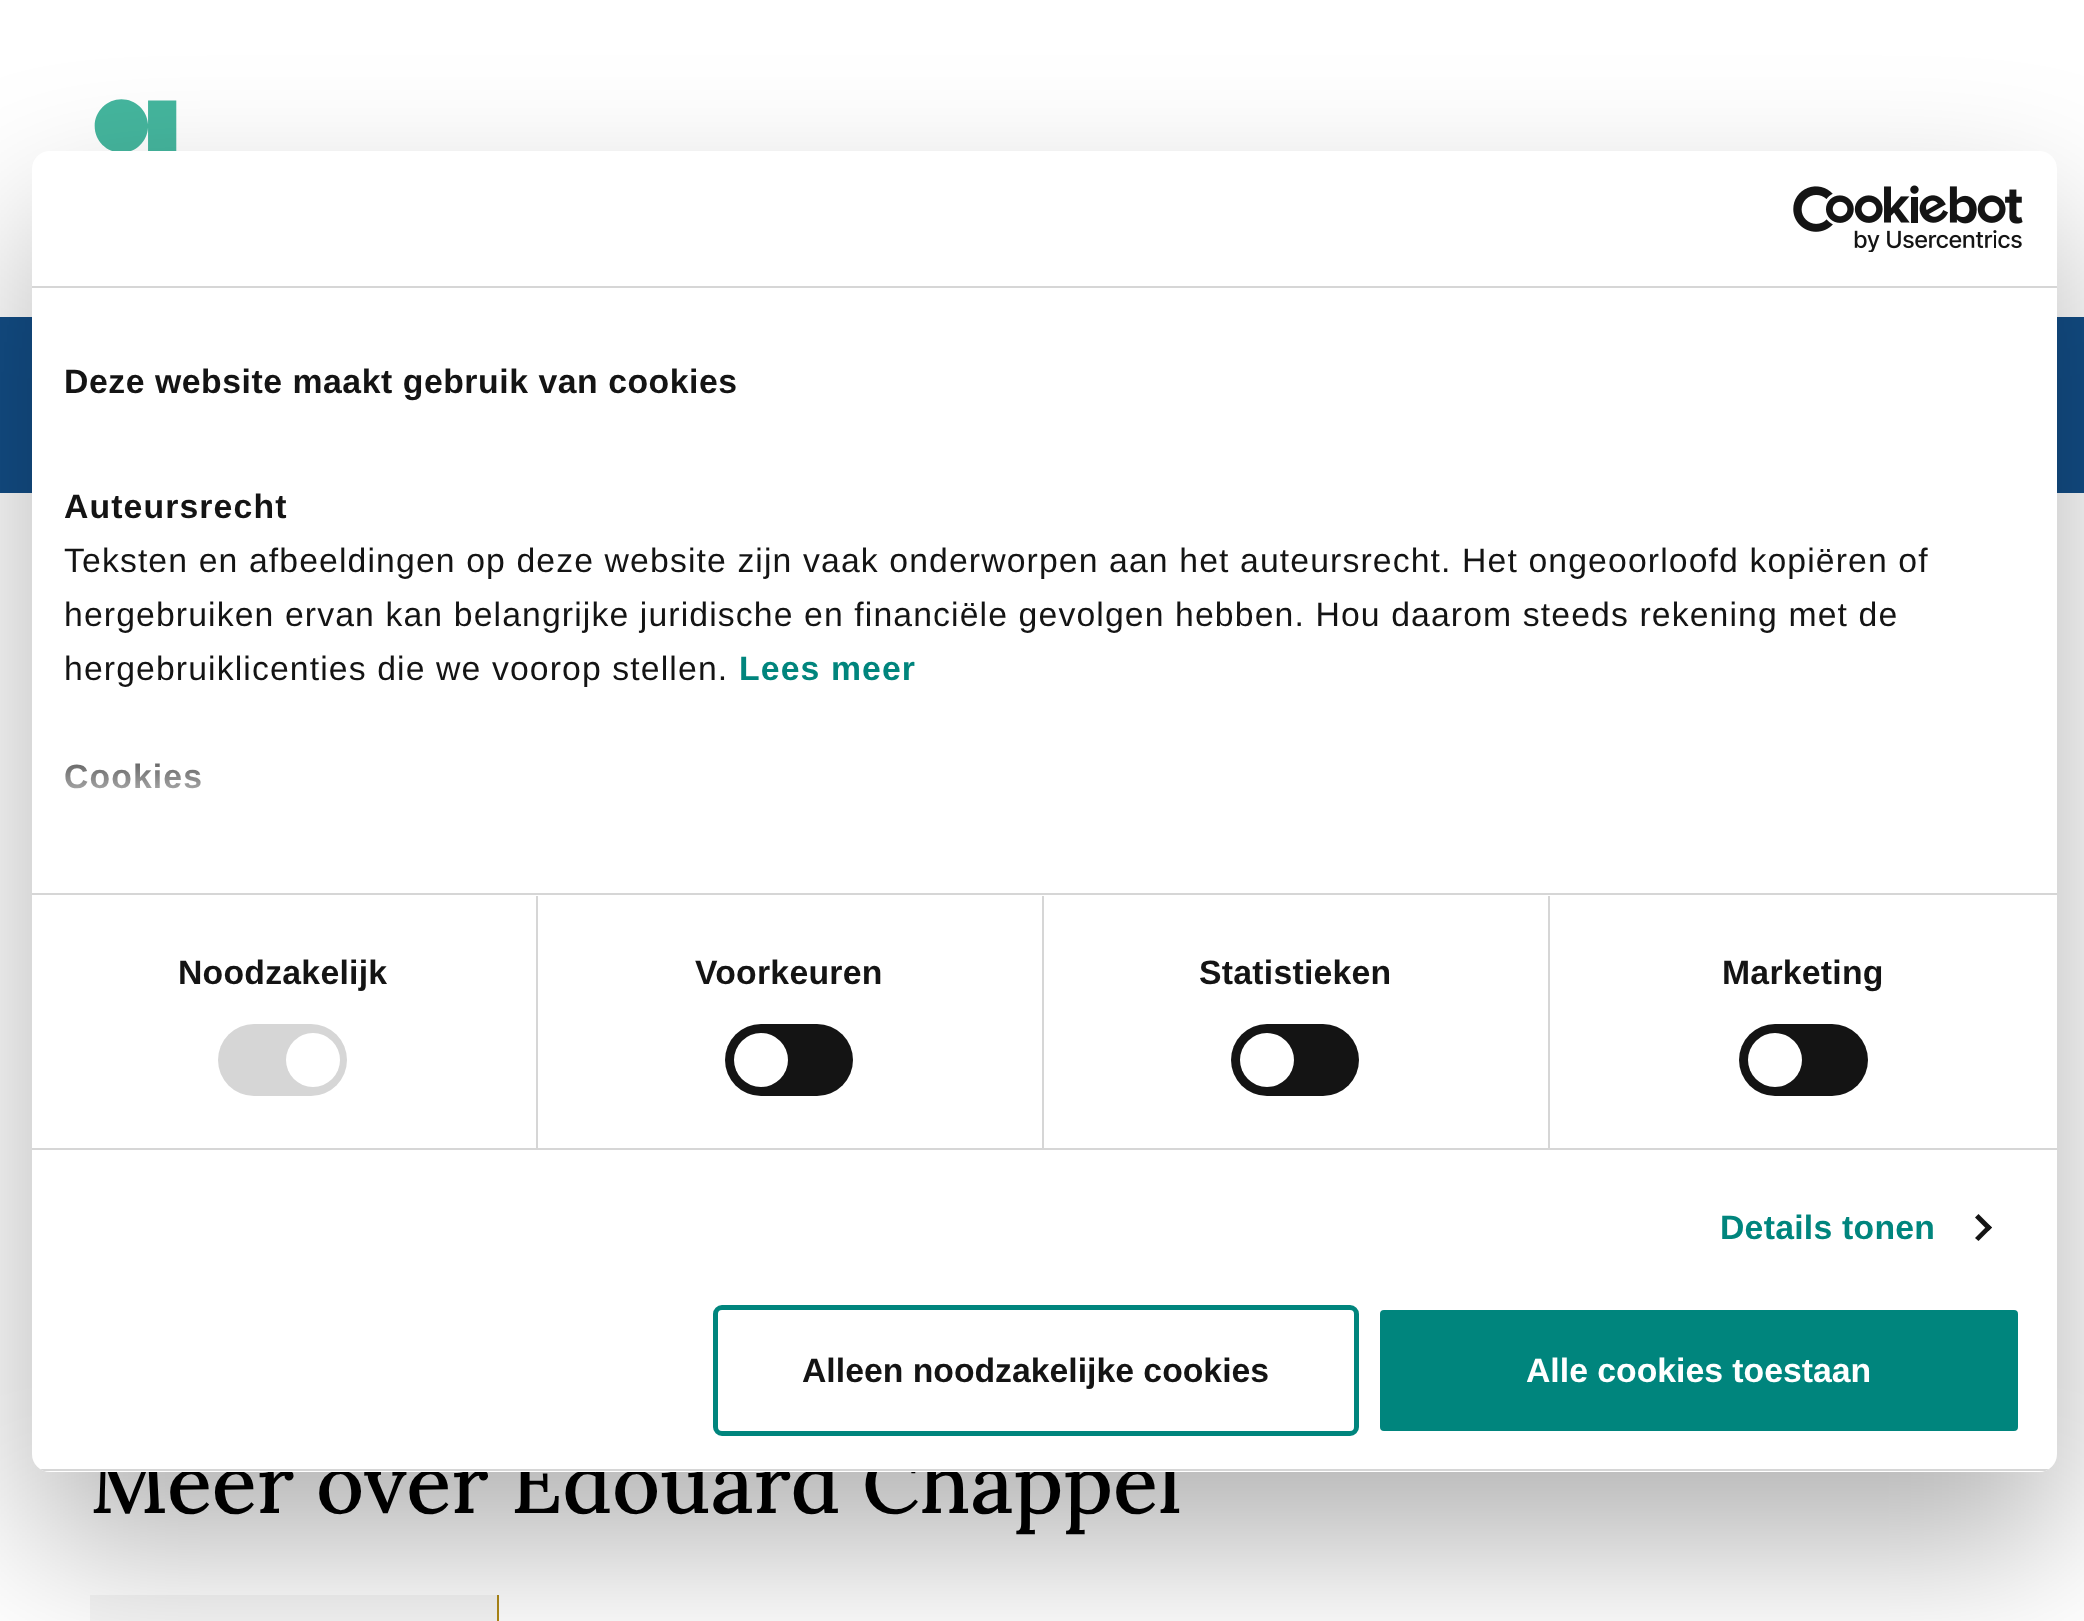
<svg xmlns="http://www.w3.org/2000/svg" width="2084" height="1621">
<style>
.a{font:500 83.25px Lora;fill:#000}
.b{font:bold 33.75px Liberation Sans;letter-spacing:1.12px;fill:#141414}
.c{font:bold 33.75px Liberation Sans;fill:#fff}
.d{font:bold 33.75px Liberation Sans;fill:#141414}
.e{font:bold 33.75px Liberation Sans;letter-spacing:1.12px;fill:#00857d}
.f{font:33.75px Liberation Sans;letter-spacing:1.12px;fill:#141414}
.g{font:bold 33.75px Liberation Sans;letter-spacing:0.55px;fill:#141414}
.h{font:bold 33.75px Liberation Sans;letter-spacing:0.25px;fill:#00857d}
.i{font:bold 33.75px Liberation Sans;letter-spacing:0.25px;fill:#141414}
</style>
<defs>
<linearGradient id="g1" gradientUnits="userSpaceOnUse" x1="1029" y1="894" x2="1029" y2="725"><stop offset="0" stop-color="#fff"/><stop offset="0.5" stop-color="#fff" stop-opacity="0.8"/><stop offset="1" stop-color="#fff" stop-opacity="0"/></linearGradient>
<clipPath id="clip1"><rect x="32" y="151" width="2025" height="1321" rx="18"/></clipPath>
</defs>
<rect width="100%" height="100%" fill="#fff"/>
<image href="1.png" x="94" y="99" width="83" height="52"/>
<path fill="#134e87" d="M0 317h2084v176H0z"/>
<path fill="#f6f6f6" d="M90 1595h407v26H90z"/>
<path fill="#af8917" d="M497 1595h2v26H497z"/>
<rect fill="#0000004d" filter="blur(76.5px)" x="32" y="223" width="2025" height="1321" rx="18"/>
<text class="a" x="90" y="1513">Meer over Edouard Chappel</text>
<rect fill="#fff" x="32" y="151" width="2025" height="1321" rx="18"/>
<text class="b" x="64" y="788">Cookies</text>
<path fill="url(#g1)" d="M65 763h136v26H65z"/>
<rect fill="#00857d" stroke="#fff" stroke-width="5" x="1377.5" y="1307.5" width="643" height="126" rx="6.5"/>
<text class="c" x="1526" y="1382">Alle cookies toestaan</text>
<rect fill="none" stroke="#00857d" stroke-width="5" x="715.5" y="1307.5" width="641" height="126" rx="6.5"/>
<text class="d" x="802" y="1382">Alleen noodzakelijke cookies</text>
<g clip-path="url(#clip1)">
<path fill="#d6d6d6" d="M32 1469h2025v2H32z"/>
</g>
<path fill="#141414" d="M1978.5 1214l13.5 13.5l-3.5 3.5l-13.5-13.5z"/>
<path fill="#141414" d="M1988.5 1224.5l3.5 3l-13.5 13.5l-3.5-3z"/>
<rect fill="#141414" x="1739" y="1024" width="129" height="72" rx="36"/>
<circle fill="#fff" cx="1775" cy="1060" r="27"/>
<rect fill="#141414" x="1231" y="1024" width="128" height="72" rx="36"/>
<circle fill="#fff" cx="1267" cy="1060" r="27"/>
<rect fill="#141414" x="725" y="1024" width="128" height="72" rx="36"/>
<circle fill="#fff" cx="761" cy="1060" r="27"/>
<rect fill="#d6d6d6" x="218" y="1024" width="129" height="72" rx="36"/>
<circle fill="#fff" cx="313" cy="1060" r="27"/>
<text class="e" x="739" y="680">Lees meer</text>
<text class="f" x="64" y="680">hergebruiklicenties die we voorop stellen.</text>
<text class="f" x="64" y="626">hergebruiken ervan kan belangrijke juridische en financiële gevolgen hebben. Hou daarom steeds rekening met de</text>
<text class="f" x="64" y="572">Teksten en afbeeldingen op deze website zijn vaak onderworpen aan het auteursrecht. Het ongeoorloofd kopiëren of</text>
<text class="b" x="64" y="518">Auteursrecht</text>
<text class="g" x="64" y="393">Deze website maakt gebruik van cookies</text>
<path fill="#d6d6d6" d="M32 893h2025v2H32z"/>
<text class="h" x="1720" y="1239">Details tonen</text>
<text class="i" x="1722" y="984">Marketing</text>
<text class="i" x="1199" y="984">Statistieken</text>
<path fill="#d6d6d6" d="M1548 896h2v252H1548z"/>
<text class="i" x="695" y="984">Voorkeuren</text>
<path fill="#d6d6d6" d="M1042 896h2v252H1042z"/>
<text class="i" x="178" y="984">Noodzakelijk</text>
<path fill="#d6d6d6" d="M536 896h2v252H536z"/>
<path fill="#d6d6d6" d="M32 1148h2025v2H32z"/>
<image href="2.png" x="1793" y="185" width="230" height="67"/>
<path fill="#d6d6d6" d="M32 286h2025v2H32z"/>
</svg>
